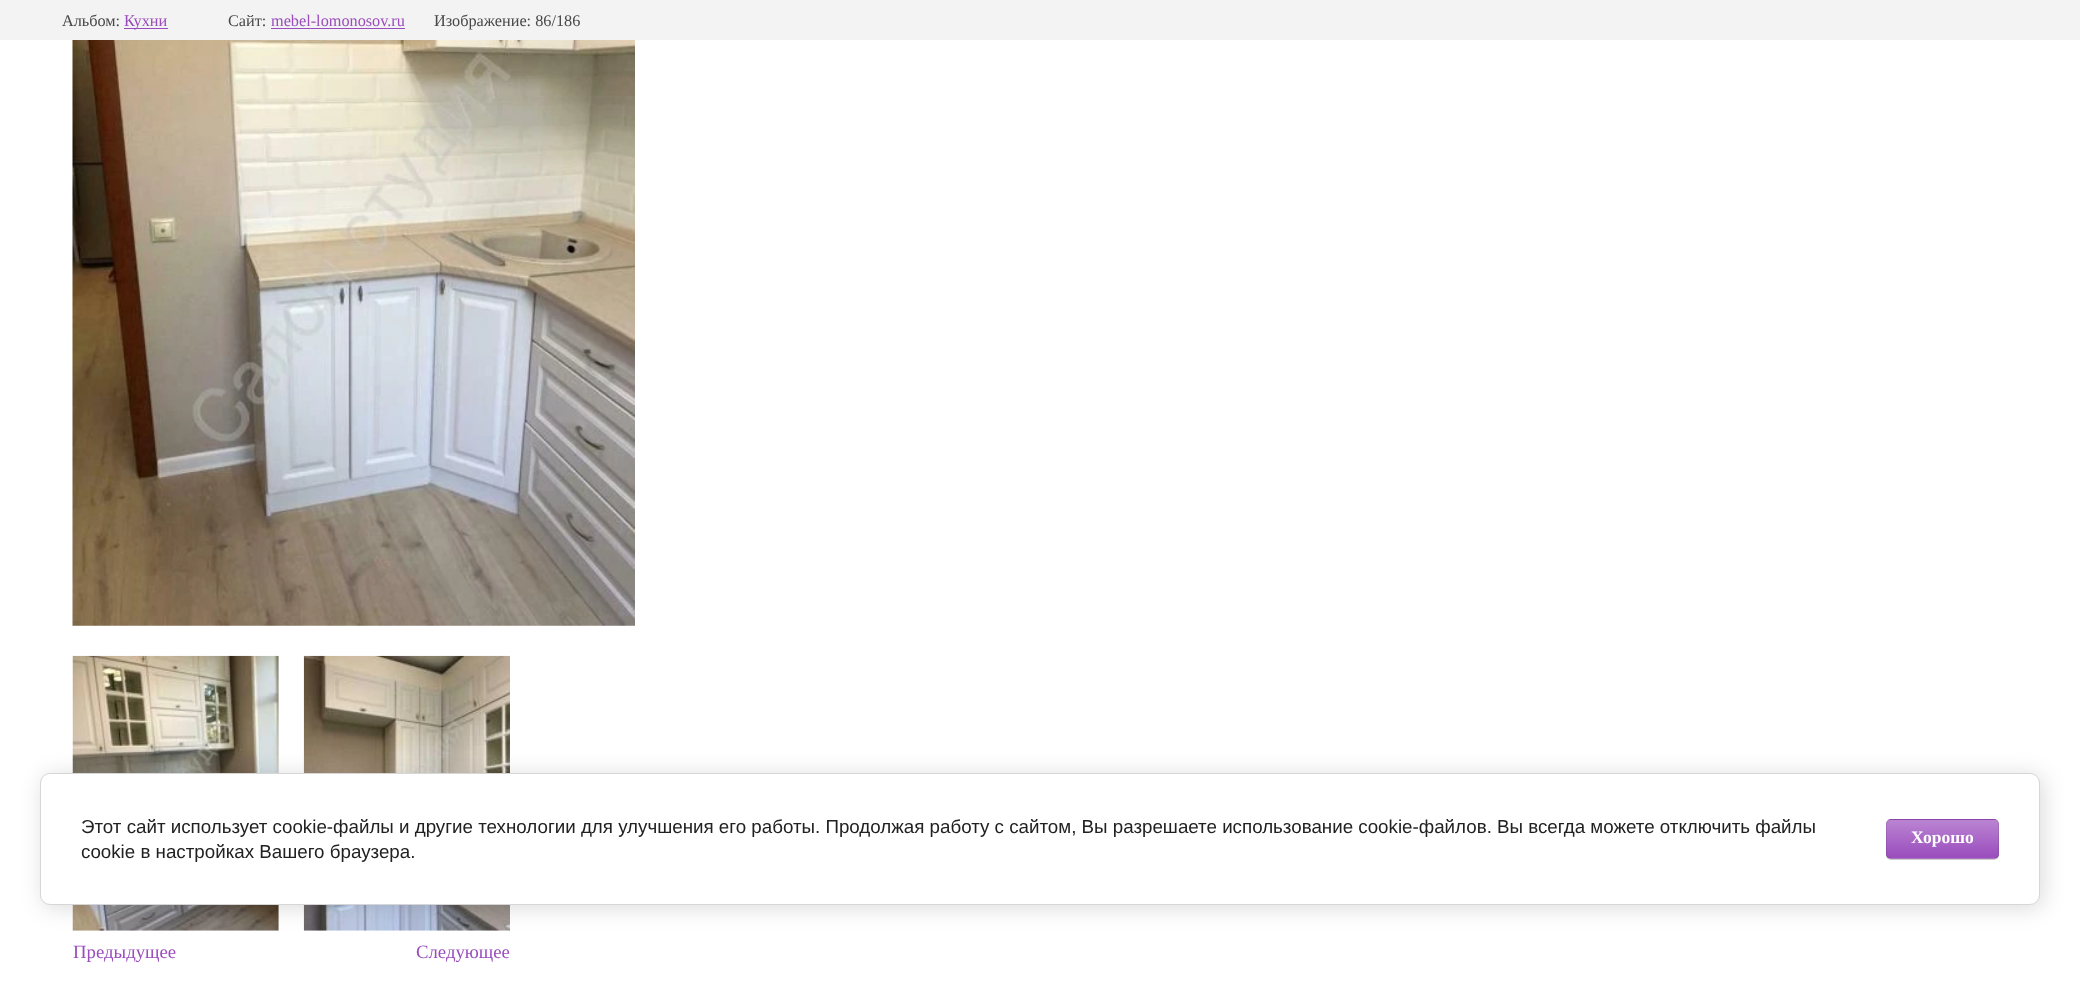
<svg xmlns="http://www.w3.org/2000/svg" width="2080" height="985">
<style>
.a{font:16.25px Liberation Serif;fill:#484848}
.b{font:16.25px Liberation Serif;fill:#9a4cbd}
.c{font:18.75px Liberation Serif;fill:#9a4cbd}
.d{font:18.75px Liberation Sans;fill:#212121}
.e{font:bold 17.5px Liberation Serif;fill:#fff}
</style>
<defs>
<clipPath id="clip1"><rect x="1886" y="819" width="113" height="40" rx="5"/></clipPath>
<linearGradient id="g1" gradientUnits="userSpaceOnUse" x1="1943" y1="783" x2="1943" y2="820"><stop offset="0" stop-color="#ba84d2"/><stop offset="1" stop-color="#9a4cbd"/></linearGradient>
<linearGradient id="g2" gradientUnits="userSpaceOnUse" x1="1943" y1="820" x2="1943" y2="858"><stop offset="0" stop-color="#ba84d2"/><stop offset="1" stop-color="#9a4cbd"/></linearGradient>
<linearGradient id="g3" gradientUnits="userSpaceOnUse" x1="1943" y1="858" x2="1943" y2="895"><stop offset="0" stop-color="#ba84d2"/><stop offset="1" stop-color="#9a4cbd"/></linearGradient>
</defs>
<rect width="100%" height="100%" fill="#fff"/>
<path fill="#f3f3f3" d="M0 0h2080v40H0z"/>
<path fill="#9a4cbd" d="M124 28h44v1H124z"/>
<path fill="#9a4cbd" d="M271 28h134v1H271z"/>
<image href="1.png" x="72" y="40" width="563" height="586"/>
<image href="2.png" x="72" y="655" width="207" height="276"/>
<image href="3.png" x="303" y="655" width="207" height="276"/>
<rect fill="#00000024" filter="blur(11px)" x="43" y="775" width="2000" height="133" rx="10"/>
<rect fill="#fff" stroke="#d6d6d6" x="40.5" y="773.5" width="1999" height="131" rx="9.5"/>
<rect fill="#00000033" filter="blur(0.5px)" x="1886" y="820" width="113" height="40" rx="5"/>
<g clip-path="url(#clip1)">
<path fill="url(#g1)" d="M1886 819h113v1H1886z"/>
<path fill="url(#g2)" d="M1886 820h113v38H1886z"/>
<path fill="url(#g3)" d="M1886 858h113v1H1886z"/>
</g>
<rect fill="none" stroke="#0000001a" x="1886.5" y="819.5" width="112" height="39" rx="4.5"/>
<text class="a" x="62" y="26">Альбом:</text>
<text class="b" x="124" y="26">Кухни</text>
<text class="a" x="228" y="26">Сайт:</text>
<text class="b" x="271" y="26">mebel-lomonosov.ru</text>
<text class="a" x="434" y="26">Изображение: 86/186</text>
<text class="c" x="73" y="958">Предыдущее</text>
<text class="c" x="416" y="958">Следующее</text>
<text class="d" x="81" y="833">Этот сайт использует cookie-файлы и другие технологии для улучшения его работы. Продолжая работу с сайтом, Вы разрешаете использование cookie-файлов. Вы всегда можете отключить файлы</text>
<text class="d" x="81" y="858">cookie в настройках Вашего браузера.</text>
<text class="e" x="1911" y="843">Хорошо</text>
</svg>
